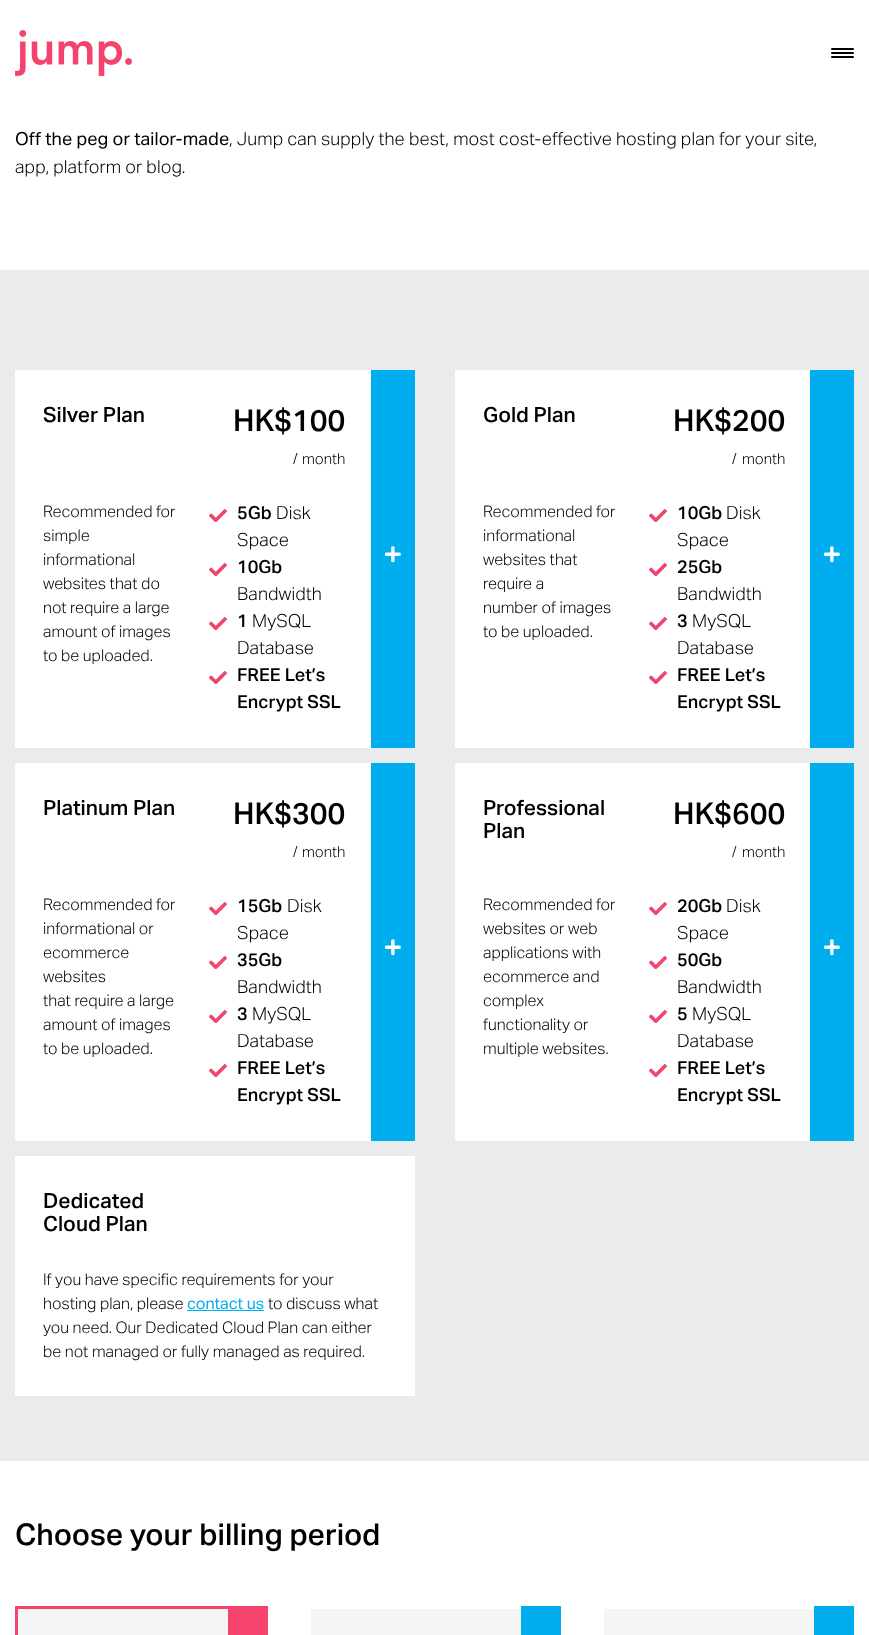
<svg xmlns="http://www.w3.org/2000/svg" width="869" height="1635">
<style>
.a{font:18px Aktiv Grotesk;letter-spacing:0.1px;fill:#000}
.b{font:300 18px Aktiv Grotesk;letter-spacing:0.1px;fill:#000}
.c{font:500 21px Aktiv Grotesk;fill:#000}
.d{font:500 30px Aktiv Grotesk;fill:#000}
.e{font:300 15px Aktiv Grotesk;fill:#000}
.f{font:300 16px Aktiv Grotesk;fill:#000}
.g{font:500 18px Aktiv Grotesk;fill:#000}
.h{font:16px Aktiv Grotesk;fill:#00aeef}
</style>
<rect width="100%" height="100%" fill="#fff"/>
<image href="1.png" x="15" y="30" width="117" height="46"/>
<rect fill="#000" x="831" y="48" width="23" height="2" rx="1"/>
<rect fill="#000" x="831" y="52" width="23" height="2" rx="1"/>
<rect fill="#000" x="831" y="56" width="23" height="2" rx="1"/>
<path fill="#eaebed" d="M0 270h869v1191H0z"/>
<path fill="#fff" d="M15 370h356v378H15z"/>
<image href="2.png" x="209" y="509" width="18" height="13"/>
<image href="2.png" x="209" y="563" width="18" height="13"/>
<image href="2.png" x="209" y="617" width="18" height="13"/>
<image href="2.png" x="209" y="671" width="18" height="13"/>
<path fill="#00aeef" d="M371 370h44v378H371z"/>
<image href="3.png" x="385" y="546" width="16" height="17"/>
<path fill="#fff" d="M455 370h355v378H455z"/>
<image href="2.png" x="649" y="509" width="18" height="13"/>
<image href="2.png" x="649" y="563" width="18" height="13"/>
<image href="2.png" x="649" y="617" width="18" height="13"/>
<image href="2.png" x="649" y="671" width="18" height="13"/>
<path fill="#00aeef" d="M810 370h44v378H810z"/>
<image href="3.png" x="824" y="546" width="16" height="17"/>
<path fill="#fff" d="M15 763h356v378H15z"/>
<image href="2.png" x="209" y="902" width="18" height="13"/>
<image href="2.png" x="209" y="956" width="18" height="13"/>
<image href="2.png" x="209" y="1010" width="18" height="13"/>
<image href="2.png" x="209" y="1064" width="18" height="13"/>
<path fill="#00aeef" d="M371 763h44v378H371z"/>
<image href="3.png" x="385" y="939" width="16" height="17"/>
<path fill="#fff" d="M455 763h355v378H455z"/>
<image href="2.png" x="649" y="902" width="18" height="13"/>
<image href="2.png" x="649" y="956" width="18" height="13"/>
<image href="2.png" x="649" y="1010" width="18" height="13"/>
<image href="2.png" x="649" y="1064" width="18" height="13"/>
<path fill="#00aeef" d="M810 763h44v378H810z"/>
<image href="3.png" x="824" y="939" width="16" height="17"/>
<path fill="#fff" d="M15 1156h400v240H15z"/>
<path fill="#00aeef" d="M187 1310h77v1H187z"/>
<path fill="#f5f5f6" d="M18 1609h210v26H18z"/>
<path fill="#f4436c" d="M15 1606h213v3H15z"/>
<path fill="#f4436c" d="M15 1606h3v29H15z"/>
<path fill="#f4436c" d="M228 1606h40v29H228z"/>
<path fill="#f5f5f6" d="M311 1609h210v26H311z"/>
<path fill="#00aeef" d="M521 1606h40v29H521z"/>
<path fill="#f5f5f6" d="M604 1609h210v26H604z"/>
<path fill="#00aeef" d="M814 1606h40v29H814z"/>
<text class="a" x="15" y="145">Off the peg or tailor-made</text>
<text class="b" x="229" y="145">, Jump can supply the best, most cost-effective hosting plan for your site,</text>
<text class="b" x="15" y="173">app, platform or blog.</text>
<text class="c" x="43" y="422">Silver Plan</text>
<text class="d" x="233" y="431">HK$100</text>
<text class="e" x="293" y="464">/</text>
<text class="e" x="302" y="464">month</text>
<text class="f" x="43" y="517">Recommended for</text>
<text class="f" x="43" y="541">simple</text>
<text class="f" x="43" y="565">informational</text>
<text class="f" x="43" y="589">websites that do</text>
<text class="f" x="43" y="613">not require a large</text>
<text class="f" x="43" y="637">amount of images</text>
<text class="f" x="43" y="661">to be uploaded.</text>
<text class="g" x="237" y="519">5Gb</text>
<text class="b" x="276" y="519">Disk</text>
<text class="b" x="237" y="546">Space</text>
<text class="g" x="237" y="573">10Gb</text>
<text class="b" x="237" y="600">Bandwidth</text>
<text class="g" x="237" y="627">1</text>
<text class="b" x="252" y="627">MySQL</text>
<text class="b" x="237" y="654">Database</text>
<text class="g" x="237" y="681">FREE Let’s</text>
<text class="g" x="237" y="708">Encrypt SSL</text>
<text class="c" x="483" y="422">Gold Plan</text>
<text class="d" x="673" y="431">HK$200</text>
<text class="e" x="732" y="464">/</text>
<text class="e" x="742" y="464">month</text>
<text class="f" x="483" y="517">Recommended for</text>
<text class="f" x="483" y="541">informational</text>
<text class="f" x="483" y="565">websites that</text>
<text class="f" x="483" y="589">require a</text>
<text class="f" x="483" y="613">number of images</text>
<text class="f" x="483" y="637">to be uploaded.</text>
<text class="g" x="677" y="519">10Gb</text>
<text class="b" x="726" y="519">Disk</text>
<text class="b" x="677" y="546">Space</text>
<text class="g" x="677" y="573">25Gb</text>
<text class="b" x="677" y="600">Bandwidth</text>
<text class="g" x="677" y="627">3</text>
<text class="b" x="692" y="627">MySQL</text>
<text class="b" x="677" y="654">Database</text>
<text class="g" x="677" y="681">FREE Let’s</text>
<text class="g" x="677" y="708">Encrypt SSL</text>
<text class="c" x="43" y="815">Platinum Plan</text>
<text class="d" x="233" y="824">HK$300</text>
<text class="e" x="293" y="857">/</text>
<text class="e" x="302" y="857">month</text>
<text class="f" x="43" y="910">Recommended for</text>
<text class="f" x="43" y="934">informational or</text>
<text class="f" x="43" y="958">ecommerce</text>
<text class="f" x="43" y="982">websites</text>
<text class="f" x="43" y="1006">that require a large</text>
<text class="f" x="43" y="1030">amount of images</text>
<text class="f" x="43" y="1054">to be uploaded.</text>
<text class="g" x="237" y="912">15Gb</text>
<text class="b" x="287" y="912">Disk</text>
<text class="b" x="237" y="939">Space</text>
<text class="g" x="237" y="966">35Gb</text>
<text class="b" x="237" y="993">Bandwidth</text>
<text class="g" x="237" y="1020">3</text>
<text class="b" x="252" y="1020">MySQL</text>
<text class="b" x="237" y="1047">Database</text>
<text class="g" x="237" y="1074">FREE Let’s</text>
<text class="g" x="237" y="1101">Encrypt SSL</text>
<text class="c" x="483" y="815">Professional</text>
<text class="c" x="483" y="838">Plan</text>
<text class="d" x="673" y="824">HK$600</text>
<text class="e" x="732" y="857">/</text>
<text class="e" x="742" y="857">month</text>
<text class="f" x="483" y="910">Recommended for</text>
<text class="f" x="483" y="934">websites or web</text>
<text class="f" x="483" y="958">applications with</text>
<text class="f" x="483" y="982">ecommerce and</text>
<text class="f" x="483" y="1006">complex</text>
<text class="f" x="483" y="1030">functionality or</text>
<text class="f" x="483" y="1054">multiple websites.</text>
<text class="g" x="677" y="912">20Gb</text>
<text class="b" x="726" y="912">Disk</text>
<text class="b" x="677" y="939">Space</text>
<text class="g" x="677" y="966">50Gb</text>
<text class="b" x="677" y="993">Bandwidth</text>
<text class="g" x="677" y="1020">5</text>
<text class="b" x="692" y="1020">MySQL</text>
<text class="b" x="677" y="1047">Database</text>
<text class="g" x="677" y="1074">FREE Let’s</text>
<text class="g" x="677" y="1101">Encrypt SSL</text>
<text class="c" x="43" y="1208">Dedicated</text>
<text class="c" x="43" y="1231">Cloud Plan</text>
<text class="f" x="43" y="1285">If you have specific requirements for your</text>
<text class="f" x="43" y="1309">hosting plan, please</text>
<text class="h" x="187" y="1309">contact us</text>
<text class="f" x="268" y="1309">to discuss what</text>
<text class="f" x="43" y="1333">you need. Our Dedicated Cloud Plan can either</text>
<text class="f" x="43" y="1357">be not managed or fully managed as required.</text>
<text class="d" x="15" y="1545">Choose your billing period</text>
</svg>
